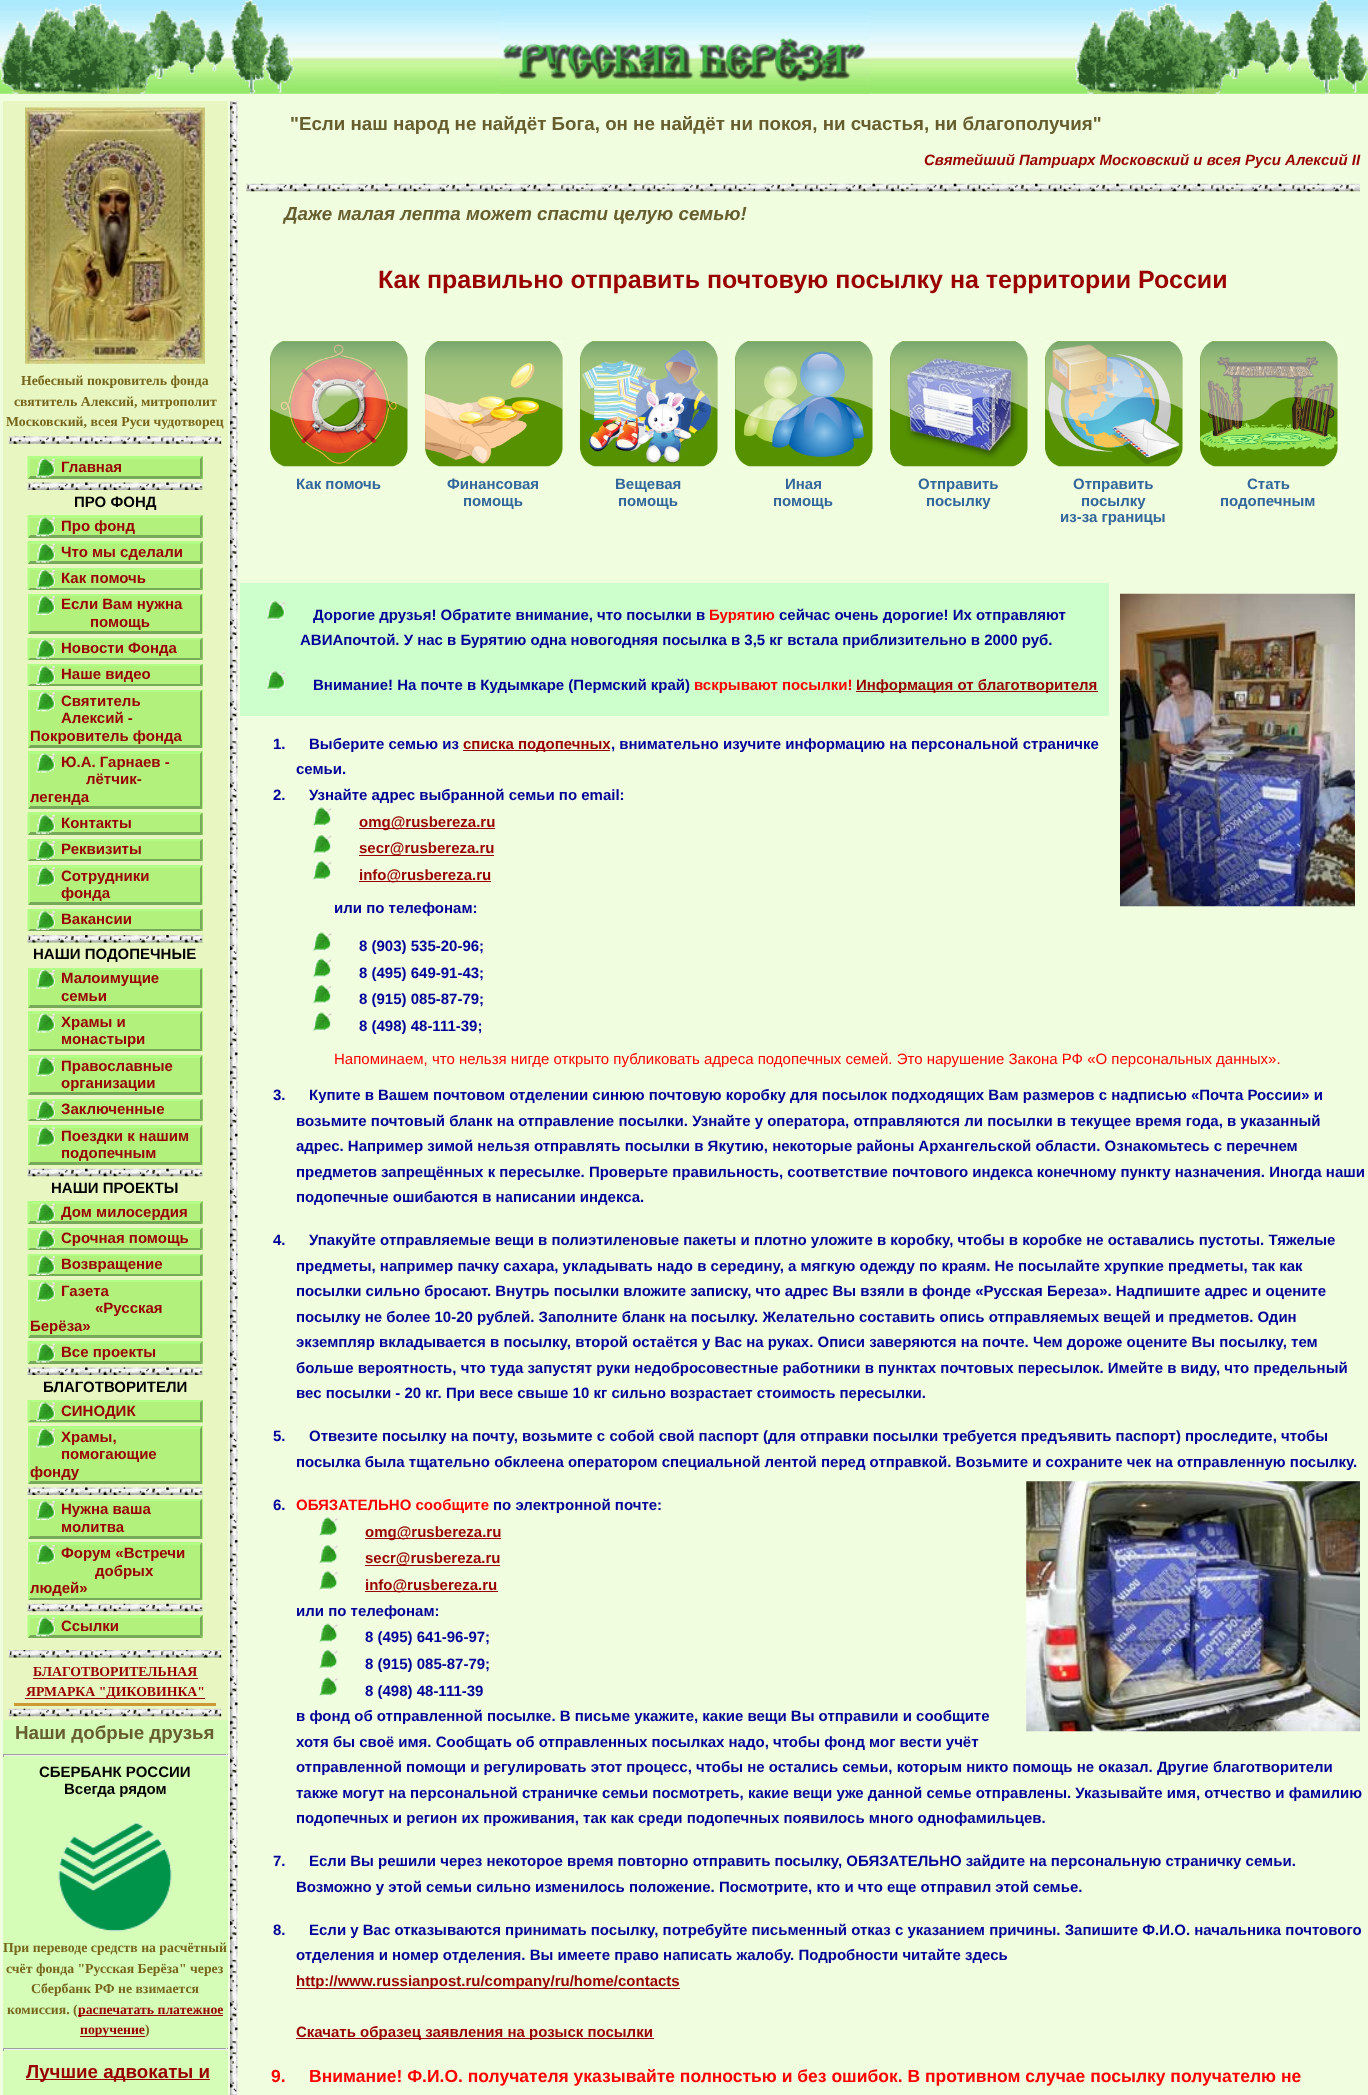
<svg xmlns="http://www.w3.org/2000/svg" width="1368" height="2095">
<style>
.a{font:bold 13.75px Liberation Serif;fill:#77671d}
.b{font:bold 15px Liberation Sans;fill:#900}
.c{font:bold 15px Liberation Sans;fill:#000}
.d{font:bold 13.75px Liberation Serif;fill:#900}
.e{font:bold 18.75px Liberation Sans;fill:#665e2e}
.f{font:bold 18.75px Liberation Sans;fill:#900}
.g{font:italic bold 15px Liberation Sans;fill:#900}
.h{font:italic bold 18.75px Liberation Sans;fill:#665e2e}
.i{font:bold 25px Liberation Sans;fill:#900}
.j{font:bold 15px Liberation Sans;fill:#369}
.k{font:bold 15px Liberation Sans;fill:#009}
.l{font:bold 15px Liberation Sans;fill:#f00}
.m{font:15px Liberation Sans;fill:#f00}
.n{font:bold 17.5px Liberation Sans;fill:#f00}
</style>
<rect width="100%" height="100%" fill="#f0fddf"/>
<image href="1.png" x="0" y="0" width="1368" height="94"/>
<image href="2.png" x="0" y="0" width="294" height="94"/>
<image href="3.png" x="500" y="11" width="370" height="83"/>
<image href="4.png" x="1075" y="0" width="293" height="94"/>
<path fill="#e8f7c1" d="M3 101h225v1619H3z"/>
<image href="5.png" x="25" y="107" width="180" height="257"/>
<image href="6.png" x="8" y="436" width="214" height="8"/>
<path fill="#b1f17c" d="M28 456h175v23H28z"/>
<path fill="#b1ff85" d="M28 456h174l-2 3h-170z"/>
<path fill="#76aa59" d="M202.5 456v23l-2.5-3v-17z"/>
<path fill="#76aa59" d="M202 479h-174l2-3h170z"/>
<path fill="#b1ff85" d="M27.5 479v-23l2.5 3v17z"/>
<image href="7.png" x="36" y="458" width="19" height="20"/>
<path fill="#c9f5a3" d="M202 483h1v7H202z"/>
<image href="8.png" x="27" y="482" width="176" height="8"/>
<path fill="#b1f17c" d="M28 515h175v23H28z"/>
<path fill="#b1ff85" d="M28 515h174l-2 3h-170z"/>
<path fill="#76aa59" d="M202.5 515v22.5l-2.5-2.5v-17.5z"/>
<path fill="#76aa59" d="M202 538h-174l2-3h170z"/>
<path fill="#b1ff85" d="M27.5 537.5v-22.5l2.5 2.5v17.5z"/>
<image href="9.png" x="36" y="517" width="19" height="20"/>
<path fill="#b1f17c" d="M28 541h175v23H28z"/>
<path fill="#b1ff85" d="M28 541h174l-2 3h-170z"/>
<path fill="#76aa59" d="M202.5 541v23l-2.5-3v-17z"/>
<path fill="#76aa59" d="M202 564h-174l2-3h170z"/>
<path fill="#b1ff85" d="M27.5 564v-23l2.5 3v17z"/>
<image href="7.png" x="36" y="543" width="19" height="20"/>
<path fill="#b1f17c" d="M28 568h175v22H28z"/>
<path fill="#b1ff85" d="M28 568h174l-2 2h-170z"/>
<path fill="#76aa59" d="M202.5 567.5v22.5l-2.5-2.5v-17.5z"/>
<path fill="#76aa59" d="M202 590h-174l2-2h170z"/>
<path fill="#b1ff85" d="M27.5 590v-22.5l2.5 2.5v17.5z"/>
<image href="10.png" x="36" y="570" width="19" height="19"/>
<path fill="#b1f17c" d="M28 594h175v40H28z"/>
<path fill="#b1ff85" d="M28 594h174l-2 2h-170z"/>
<path fill="#76aa59" d="M202 594v40l-2-3v-35z"/>
<path fill="#76aa59" d="M202 634h-174l2-3h170z"/>
<path fill="#b1ff85" d="M28 634v-40l2 2v35z"/>
<image href="11.png" x="36" y="596" width="19" height="19"/>
<path fill="#b1f17c" d="M28 638h175v22H28z"/>
<path fill="#b1ff85" d="M28 638h174l-2 2h-170z"/>
<path fill="#76aa59" d="M202.5 637.5v22.5l-2.5-2.5v-17.5z"/>
<path fill="#76aa59" d="M202 660h-174l2-2h170z"/>
<path fill="#b1ff85" d="M27.5 660v-22.5l2.5 2.5v17.5z"/>
<image href="10.png" x="36" y="640" width="19" height="19"/>
<path fill="#b1f17c" d="M28 664h175v22H28z"/>
<path fill="#b1ff85" d="M28 664h174l-2 2h-170z"/>
<path fill="#76aa59" d="M202.5 664v22l-2.5-2v-18z"/>
<path fill="#76aa59" d="M202 686h-174l2-2h170z"/>
<path fill="#b1ff85" d="M27.5 686v-22l2.5 2v18z"/>
<image href="12.png" x="36" y="666" width="19" height="19"/>
<path fill="#b1f17c" d="M28 690h175v58H28z"/>
<path fill="#b1ff85" d="M28 690h174l-2 2h-170z"/>
<path fill="#76aa59" d="M202 690v58l-2-3v-53z"/>
<path fill="#76aa59" d="M202 748h-174l2-3h170z"/>
<path fill="#b1ff85" d="M28 748v-58l2 2v53z"/>
<image href="13.png" x="36" y="692" width="19" height="20"/>
<path fill="#b1f17c" d="M28 751h175v58H28z"/>
<path fill="#b1ff85" d="M28 751h174l-2 3h-170z"/>
<path fill="#76aa59" d="M202 751v58l-2-3v-52z"/>
<path fill="#76aa59" d="M202 809h-174l2-3h170z"/>
<path fill="#b1ff85" d="M28 809v-58l2 3v52z"/>
<image href="14.png" x="36" y="753" width="19" height="20"/>
<path fill="#b1f17c" d="M28 813h175v22H28z"/>
<path fill="#b1ff85" d="M28 812h174l-2 3h-170z"/>
<path fill="#76aa59" d="M202.5 812.5v22.5l-2.5-2.5v-17.5z"/>
<path fill="#76aa59" d="M202 835h-174l2-3h170z"/>
<path fill="#b1ff85" d="M27.5 835v-22.5l2.5 2.5v17.5z"/>
<image href="15.png" x="36" y="815" width="19" height="19"/>
<path fill="#b1f17c" d="M28 839h175v22H28z"/>
<path fill="#b1ff85" d="M28 839h174l-2 2h-170z"/>
<path fill="#76aa59" d="M202.5 839v22l-2.5-2v-18z"/>
<path fill="#76aa59" d="M202 861h-174l2-2h170z"/>
<path fill="#b1ff85" d="M27.5 861v-22l2.5 2v18z"/>
<image href="12.png" x="36" y="841" width="19" height="19"/>
<path fill="#b1f17c" d="M28 865h175v40H28z"/>
<path fill="#b1ff85" d="M28 865h174l-2 3h-170z"/>
<path fill="#76aa59" d="M202 865v40l-2-3v-34z"/>
<path fill="#76aa59" d="M202 905h-174l2-3h170z"/>
<path fill="#b1ff85" d="M28 905v-40l2 3v34z"/>
<image href="16.png" x="36" y="867" width="19" height="20"/>
<path fill="#b1f17c" d="M28 909h175v22H28z"/>
<path fill="#b1ff85" d="M28 909h174l-2 2h-170z"/>
<path fill="#76aa59" d="M202.5 909v22l-2.5-2v-18z"/>
<path fill="#76aa59" d="M202 931h-174l2-2h170z"/>
<path fill="#b1ff85" d="M27.5 931v-22l2.5 2v18z"/>
<image href="12.png" x="36" y="911" width="19" height="19"/>
<path fill="#c9f5a3" d="M28 935h175v8H28z"/>
<image href="17.png" x="27" y="935" width="176" height="8"/>
<path fill="#b1f17c" d="M28 968h175v40H28z"/>
<path fill="#b1ff85" d="M28 968h174l-2 2h-170z"/>
<path fill="#76aa59" d="M202 968v40l-2-3v-35z"/>
<path fill="#76aa59" d="M202 1008h-174l2-3h170z"/>
<path fill="#b1ff85" d="M28 1008v-40l2 2v35z"/>
<image href="18.png" x="36" y="970" width="19" height="19"/>
<path fill="#b1f17c" d="M28 1011h175v40H28z"/>
<path fill="#b1ff85" d="M28 1011h174l-2 3h-170z"/>
<path fill="#76aa59" d="M202 1011v40l-2-2v-35z"/>
<path fill="#76aa59" d="M202 1051h-174l2-2h170z"/>
<path fill="#b1ff85" d="M28 1051v-40l2 3v35z"/>
<image href="14.png" x="36" y="1013" width="19" height="20"/>
<path fill="#b1f17c" d="M28 1055h175v40H28z"/>
<path fill="#b1ff85" d="M28 1055h174l-2 3h-170z"/>
<path fill="#76aa59" d="M202 1055v40l-2-3v-34z"/>
<path fill="#76aa59" d="M202 1095h-174l2-3h170z"/>
<path fill="#b1ff85" d="M28 1095v-40l2 3v34z"/>
<image href="16.png" x="36" y="1057" width="19" height="20"/>
<path fill="#b1f17c" d="M28 1099h175v22H28z"/>
<path fill="#b1ff85" d="M28 1099h174l-2 2h-170z"/>
<path fill="#76aa59" d="M202.5 1099v22l-2.5-2v-18z"/>
<path fill="#76aa59" d="M202 1121h-174l2-2h170z"/>
<path fill="#b1ff85" d="M27.5 1121v-22l2.5 2v18z"/>
<image href="12.png" x="36" y="1101" width="19" height="19"/>
<path fill="#b1f17c" d="M28 1125h175v40H28z"/>
<path fill="#b1ff85" d="M28 1125h174l-2 3h-170z"/>
<path fill="#76aa59" d="M202 1125v40l-2-3v-34z"/>
<path fill="#76aa59" d="M202 1165h-174l2-3h170z"/>
<path fill="#b1ff85" d="M28 1165v-40l2 3v34z"/>
<image href="16.png" x="36" y="1127" width="19" height="20"/>
<path fill="#c9f5a3" d="M202 1169h1v7H202z"/>
<image href="19.png" x="27" y="1168" width="176" height="9"/>
<path fill="#b1f17c" d="M28 1201h175v23H28z"/>
<path fill="#b1ff85" d="M28 1201h174l-2 3h-170z"/>
<path fill="#76aa59" d="M202.5 1201v23l-2.5-3v-17z"/>
<path fill="#76aa59" d="M202 1224h-174l2-3h170z"/>
<path fill="#b1ff85" d="M27.5 1224v-23l2.5 3v17z"/>
<image href="7.png" x="36" y="1203" width="19" height="20"/>
<path fill="#b1f17c" d="M28 1228h175v22H28z"/>
<path fill="#b1ff85" d="M28 1228h174l-2 2h-170z"/>
<path fill="#76aa59" d="M202.5 1227.5v22.5l-2.5-2.5v-17.5z"/>
<path fill="#76aa59" d="M202 1250h-174l2-2h170z"/>
<path fill="#b1ff85" d="M27.5 1250v-22.5l2.5 2.5v17.5z"/>
<image href="10.png" x="36" y="1230" width="19" height="19"/>
<path fill="#b1f17c" d="M28 1254h175v22H28z"/>
<path fill="#b1ff85" d="M28 1254h174l-2 2h-170z"/>
<path fill="#76aa59" d="M202.5 1254v22l-2.5-2v-18z"/>
<path fill="#76aa59" d="M202 1276h-174l2-2h170z"/>
<path fill="#b1ff85" d="M27.5 1276v-22l2.5 2v18z"/>
<image href="12.png" x="36" y="1256" width="19" height="19"/>
<path fill="#b1f17c" d="M28 1280h175v58H28z"/>
<path fill="#b1ff85" d="M28 1280h174l-2 2h-170z"/>
<path fill="#76aa59" d="M202 1280v58l-2-3v-53z"/>
<path fill="#76aa59" d="M202 1338h-174l2-3h170z"/>
<path fill="#b1ff85" d="M28 1338v-58l2 2v53z"/>
<image href="13.png" x="36" y="1282" width="19" height="20"/>
<path fill="#b1f17c" d="M28 1341h175v23H28z"/>
<path fill="#b1ff85" d="M28 1341h174l-2 3h-170z"/>
<path fill="#76aa59" d="M202.5 1341v23l-2.5-3v-17z"/>
<path fill="#76aa59" d="M202 1364h-174l2-3h170z"/>
<path fill="#b1ff85" d="M27.5 1364v-23l2.5 3v17z"/>
<image href="7.png" x="36" y="1343" width="19" height="20"/>
<path fill="#c9f5a3" d="M202 1368h1v7H202z"/>
<image href="20.png" x="27" y="1367" width="176" height="8"/>
<path fill="#b1f17c" d="M28 1400h175v23H28z"/>
<path fill="#b1ff85" d="M28 1400h174l-2 2h-170z"/>
<path fill="#76aa59" d="M202.5 1400v22.5l-2.5-2.5v-17.5z"/>
<path fill="#76aa59" d="M202 1422h-174l2-2h170z"/>
<path fill="#b1ff85" d="M27.5 1422.5v-22.5l2.5 2.5v17.5z"/>
<image href="21.png" x="36" y="1402" width="19" height="20"/>
<path fill="#b1f17c" d="M28 1426h175v58H28z"/>
<path fill="#b1ff85" d="M28 1426h174l-2 3h-170z"/>
<path fill="#76aa59" d="M202 1426v58l-2-3v-52z"/>
<path fill="#76aa59" d="M202 1484h-174l2-3h170z"/>
<path fill="#b1ff85" d="M28 1484v-58l2 3v52z"/>
<image href="14.png" x="36" y="1428" width="19" height="20"/>
<path fill="#c9f5a3" d="M202 1488h1v7H202z"/>
<image href="22.png" x="27" y="1487" width="176" height="8"/>
<path fill="#b1f17c" d="M28 1499h175v40H28z"/>
<path fill="#b1ff85" d="M28 1499h174l-2 2h-170z"/>
<path fill="#76aa59" d="M202 1499v40l-2-3v-35z"/>
<path fill="#76aa59" d="M202 1539h-174l2-3h170z"/>
<path fill="#b1ff85" d="M28 1539v-40l2 2v35z"/>
<image href="11.png" x="36" y="1501" width="19" height="19"/>
<path fill="#b1f17c" d="M28 1543h175v57H28z"/>
<path fill="#b1ff85" d="M28 1542h174l-2 3h-170z"/>
<path fill="#76aa59" d="M202 1542v58l-2-2v-53z"/>
<path fill="#76aa59" d="M202 1600h-174l2-2h170z"/>
<path fill="#b1ff85" d="M28 1600v-58l2 3v53z"/>
<image href="18.png" x="36" y="1545" width="19" height="19"/>
<path fill="#c9f5a3" d="M202 1604h1v7H202z"/>
<image href="23.png" x="27" y="1603" width="176" height="9"/>
<path fill="#b1f17c" d="M28 1615h175v23H28z"/>
<path fill="#b1ff85" d="M28 1615h174l-2 3h-170z"/>
<path fill="#76aa59" d="M202.5 1615v22.5l-2.5-2.5v-17.5z"/>
<path fill="#76aa59" d="M202 1638h-174l2-3h170z"/>
<path fill="#b1ff85" d="M27.5 1637.5v-22.5l2.5 2.5v17.5z"/>
<image href="9.png" x="36" y="1617" width="19" height="20"/>
<path fill="#c9f5a3" d="M9 1657h212v1H9z"/>
<image href="24.png" x="8" y="1650" width="214" height="8"/>
<path fill="#c93" d="M14 1703h202v3H14z"/>
<path fill="#900" d="M33 1678h165v1H33z"/>
<path fill="#900" d="M25 1698h180v1H25z"/>
<image href="25.png" x="8" y="1708" width="214" height="9"/>
<path fill="#d5fdb8" d="M3 1720h225v375H3z"/>
<path fill="#9f9f9f" d="M3 1754h225v1H3z"/>
<path fill="#eee" d="M226 1754h1v3H226z"/>
<path fill="#eee" d="M3 1755h225v1H3z"/>
<path fill="#9f9f9f" d="M3 1754h1v3H3z"/>
<image href="26.png" x="58" y="1822" width="114" height="110"/>
<path fill="#900" d="M78 2015h145v1H78z"/>
<path fill="#900" d="M80 2036h65v1H80z"/>
<path fill="#9f9f9f" d="M3 2048h225v1H3z"/>
<path fill="#eee" d="M226 2048h1v3H226z"/>
<path fill="#eee" d="M3 2049h225v1H3z"/>
<path fill="#9f9f9f" d="M3 2048h1v3H3z"/>
<path fill="#900" d="M26 2079h184v1H26z"/>
<path fill="#fff" d="M230 101h8v1994H230z"/>
<image href="27.png" x="230" y="101" width="8" height="1994"/>
<image href="28.png" x="246" y="183" width="1114" height="9"/>
<image href="29.png" x="270" y="341" width="138" height="126"/>
<image href="30.png" x="425" y="341" width="138" height="126"/>
<image href="31.png" x="580" y="341" width="138" height="126"/>
<image href="32.png" x="735" y="341" width="138" height="126"/>
<image href="33.png" x="890" y="341" width="138" height="126"/>
<image href="34.png" x="1045" y="341" width="138" height="126"/>
<image href="35.png" x="1200" y="341" width="138" height="126"/>
<path fill="#cfc" d="M240 583h869v133H240z"/>
<image href="36.png" x="266" y="601" width="19" height="19"/>
<image href="36.png" x="266" y="671" width="19" height="19"/>
<path fill="#900" d="M856 691h242v1H856z"/>
<image href="37.png" x="1120" y="593" width="235" height="314"/>
<path fill="#900" d="M463 750h147v1H463z"/>
<image href="38.png" x="312" y="807" width="20" height="20"/>
<path fill="#900" d="M359 828h136v1H359z"/>
<image href="39.png" x="312" y="835" width="20" height="19"/>
<path fill="#900" d="M359 855h135v1H359z"/>
<image href="40.png" x="312" y="861" width="20" height="19"/>
<path fill="#900" d="M359 881h132v1H359z"/>
<image href="38.png" x="312" y="932" width="20" height="20"/>
<image href="41.png" x="312" y="958" width="20" height="20"/>
<image href="39.png" x="312" y="985" width="20" height="19"/>
<image href="38.png" x="312" y="1012" width="20" height="20"/>
<image href="42.png" x="1026" y="1481" width="334" height="251"/>
<image href="43.png" x="318" y="1517" width="20" height="20"/>
<path fill="#900" d="M365 1538h136v1H365z"/>
<image href="44.png" x="318" y="1545" width="20" height="19"/>
<path fill="#900" d="M365 1565h135v1H365z"/>
<image href="45.png" x="318" y="1571" width="20" height="19"/>
<path fill="#900" d="M365 1591h133v1H365z"/>
<image href="46.png" x="318" y="1623" width="20" height="20"/>
<image href="44.png" x="318" y="1650" width="20" height="19"/>
<image href="43.png" x="318" y="1677" width="20" height="20"/>
<path fill="#900" d="M296 1988h384v1H296z"/>
<path fill="#900" d="M296 2038h358v1H296z"/>
<text class="a" x="21" y="385">Небесный покровитель фонда</text>
<text class="a" x="14" y="406">святитель Алексий, митрополит</text>
<text class="a" x="6" y="426">Московский, всея Руси чудотворец</text>
<text class="b" x="61" y="472">Главная</text>
<text class="c" x="74" y="507">ПРО ФОНД</text>
<text class="b" x="61" y="531">Про фонд</text>
<text class="b" x="61" y="557">Что мы сделали</text>
<text class="b" x="61" y="583">Как помочь</text>
<text class="b" x="61" y="609">Если Вам нужна</text>
<text class="b" x="90" y="627">помощь</text>
<text class="b" x="61" y="653">Новости Фонда</text>
<text class="b" x="61" y="679">Наше видео</text>
<text class="b" x="61" y="706">Святитель</text>
<text class="b" x="61" y="723">Алексий -</text>
<text class="b" x="30" y="741">Покровитель фонда</text>
<text class="b" x="61" y="767">Ю.А. Гарнаев -</text>
<text class="b" x="86" y="784">лётчик-</text>
<text class="b" x="30" y="802">легенда</text>
<text class="b" x="61" y="828">Контакты</text>
<text class="b" x="61" y="854">Реквизиты</text>
<text class="b" x="61" y="881">Сотрудники</text>
<text class="b" x="61" y="898">фонда</text>
<text class="b" x="61" y="924">Вакансии</text>
<text class="c" x="33" y="959">НАШИ ПОДОПЕЧНЫЕ</text>
<text class="b" x="61" y="983">Малоимущие</text>
<text class="b" x="61" y="1001">семьи</text>
<text class="b" x="61" y="1027">Храмы и</text>
<text class="b" x="61" y="1044">монастыри</text>
<text class="b" x="61" y="1071">Православные</text>
<text class="b" x="61" y="1088">организации</text>
<text class="b" x="61" y="1114">Заключенные</text>
<text class="b" x="61" y="1141">Поездки к нашим</text>
<text class="b" x="61" y="1158">подопечным</text>
<text class="c" x="51" y="1193">НАШИ ПРОЕКТЫ</text>
<text class="b" x="61" y="1217">Дом милосердия</text>
<text class="b" x="61" y="1243">Срочная помощь</text>
<text class="b" x="61" y="1269">Возвращение</text>
<text class="b" x="61" y="1296">Газета</text>
<text class="b" x="95" y="1313">«Русская</text>
<text class="b" x="30" y="1331">Берёза»</text>
<text class="b" x="61" y="1357">Все проекты</text>
<text class="c" x="43" y="1392">БЛАГОТВОРИТЕЛИ</text>
<text class="b" x="61" y="1416">СИНОДИК</text>
<text class="b" x="61" y="1442">Храмы,</text>
<text class="b" x="61" y="1459">помогающие</text>
<text class="b" x="30" y="1477">фонду</text>
<text class="b" x="61" y="1514">Нужна ваша</text>
<text class="b" x="61" y="1532">молитва</text>
<text class="b" x="61" y="1558">Форум «Встречи</text>
<text class="b" x="95" y="1576">добрых</text>
<text class="b" x="30" y="1593">людей»</text>
<text class="b" x="61" y="1631">Ссылки</text>
<text class="d" x="33" y="1676">БЛАГОТВОРИТЕЛЬНАЯ</text>
<text class="d" x="26" y="1696">ЯРМАРКА "ДИКОВИНКА"</text>
<text class="e" x="15" y="1739">Наши добрые друзья</text>
<text class="c" x="39" y="1777">СБЕРБАНК РОССИИ</text>
<text class="c" x="64" y="1794">Всегда рядом</text>
<text class="a" x="3" y="1952">При переводе средств на расчётный</text>
<text class="a" x="6" y="1973">счёт фонда "Русская Берёза" через</text>
<text class="a" x="31" y="1993">Сбербанк РФ не взимается</text>
<text class="a" x="7" y="2014">комиссия. (</text>
<text class="d" x="78" y="2014">распечатать платежное</text>
<text class="d" x="80" y="2034">поручение</text>
<text class="a" x="145" y="2034">)</text>
<text class="f" x="26" y="2078">Лучшие адвокаты и</text>
<text class="e" x="290" y="130">"Если наш народ не найдёт Бога, он не найдёт ни покоя, ни счастья, ни благополучия"</text>
<text class="g" x="924" y="165">Святейший Патриарх Московский и всея Руси Алексий II</text>
<text class="h" x="284" y="220">Даже малая лепта может спасти целую семью!</text>
<text class="i" x="378" y="288">Как правильно отправить почтовую посылку на территории России</text>
<text class="j" x="296" y="489">Как помочь</text>
<text class="j" x="447" y="489">Финансовая</text>
<text class="j" x="463" y="506">помощь</text>
<text class="j" x="615" y="489">Вещевая</text>
<text class="j" x="618" y="506">помощь</text>
<text class="j" x="785" y="489">Иная</text>
<text class="j" x="773" y="506">помощь</text>
<text class="j" x="918" y="489">Отправить</text>
<text class="j" x="926" y="506">посылку</text>
<text class="j" x="1073" y="489">Отправить</text>
<text class="j" x="1081" y="506">посылку</text>
<text class="j" x="1060" y="522">из-за границы</text>
<text class="j" x="1247" y="489">Стать</text>
<text class="j" x="1220" y="506">подопечным</text>
<text class="k" x="313" y="620">Дорогие друзья! Обратите внимание, что посылки в</text>
<text class="l" x="709" y="620">Бурятию</text>
<text class="k" x="779" y="620">сейчас очень дорогие! Их отправляют</text>
<text class="k" x="300" y="645">АВИАпочтой. У нас в Бурятию одна новогодняя посылка в 3,5 кг встала приблизительно в 2000 руб.</text>
<text class="k" x="313" y="690">Внимание! На почте в Кудымкаре (Пермский край)</text>
<text class="l" x="694" y="690">вскрывают посылки!</text>
<text class="b" x="856" y="690">Информация от благотворителя</text>
<text class="k" x="273" y="749">1.</text>
<text class="k" x="309" y="749">Выберите семью из</text>
<text class="b" x="463" y="749">списка подопечных</text>
<text class="k" x="611" y="749">, внимательно изучите информацию на персональной страничке</text>
<text class="k" x="296" y="774">семьи.</text>
<text class="k" x="273" y="800">2.</text>
<text class="k" x="309" y="800">Узнайте адрес выбранной семьи по email:</text>
<text class="b" x="359" y="827">omg@rusbereza.ru</text>
<text class="b" x="359" y="853">secr@rusbereza.ru</text>
<text class="b" x="359" y="880">info@rusbereza.ru</text>
<text class="k" x="334" y="913">или по телефонам:</text>
<text class="k" x="359" y="951">8 (903) 535-20-96;</text>
<text class="k" x="359" y="978">8 (495) 649-91-43;</text>
<text class="k" x="359" y="1004">8 (915) 085-87-79;</text>
<text class="k" x="359" y="1031">8 (498) 48-111-39;</text>
<text class="m" x="334" y="1064">Напоминаем, что нельзя нигде открыто публиковать адреса подопечных семей. Это нарушение Закона РФ «О персональных данных».</text>
<text class="k" x="273" y="1100">3.</text>
<text class="k" x="309" y="1100">Купите в Вашем почтовом отделении синюю почтовую коробку для посылок подходящих Вам размеров с надписью «Почта России» и</text>
<text class="k" x="296" y="1126">возьмите почтовый бланк на отправление посылки. Узнайте у оператора, отправляются ли посылки в текущее время года, в указанный</text>
<text class="k" x="296" y="1151">адрес. Например зимой нельзя отправлять посылки в Якутию, некоторые районы Архангельской области. Ознакомьтесь с перечнем</text>
<text class="k" x="296" y="1177">предметов запрещённых к пересылке. Проверьте правильность, соответствие почтового индекса конечному пункту назначения. Иногда наши</text>
<text class="k" x="296" y="1202">подопечные ошибаются в написании индекса.</text>
<text class="k" x="273" y="1245">4.</text>
<text class="k" x="309" y="1245">Упакуйте отправляемые вещи в полиэтиленовые пакеты и плотно уложите в коробку, чтобы в коробке не оставались пустоты. Тяжелые</text>
<text class="k" x="296" y="1271">предметы, например пачку сахара, укладывать надо в середину, а мягкую одежду по краям. Не посылайте хрупкие предметы, так как</text>
<text class="k" x="296" y="1296">посылки сильно бросают. Внутрь посылки вложите записку, что адрес Вы взяли в фонде «Русская Береза». Надпишите адрес и оцените</text>
<text class="k" x="296" y="1322">посылку не более 10-20 рублей. Заполните бланк на посылку. Желательно составить опись отправляемых вещей и предметов. Один</text>
<text class="k" x="296" y="1347">экземпляр вкладывается в посылку, второй остаётся у Вас на руках. Описи заверяются на почте. Чем дороже оцените Вы посылку, тем</text>
<text class="k" x="296" y="1373">больше вероятность, что туда запустят руки недобросовестные работники в пунктах почтовых пересылок. Имейте в виду, что предельный</text>
<text class="k" x="296" y="1398">вес посылки - 20 кг. При весе свыше 10 кг сильно возрастает стоимость пересылки.</text>
<text class="k" x="273" y="1441">5.</text>
<text class="k" x="309" y="1441">Отвезите посылку на почту, возьмите с собой свой паспорт (для отправки посылки требуется предъявить паспорт) проследите, чтобы</text>
<text class="k" x="296" y="1467">посылка была тщательно обклеена оператором специальной лентой перед отправкой. Возьмите и сохраните чек на отправленную посылку.</text>
<text class="k" x="273" y="1510">6.</text>
<text class="l" x="296" y="1510">ОБЯЗАТЕЛЬНО сообщите</text>
<text class="k" x="493" y="1510">по электронной почте:</text>
<text class="b" x="365" y="1537">omg@rusbereza.ru</text>
<text class="b" x="365" y="1563">secr@rusbereza.ru</text>
<text class="b" x="365" y="1590">info@rusbereza.ru</text>
<text class="k" x="296" y="1616">или по телефонам:</text>
<text class="k" x="365" y="1642">8 (495) 641-96-97;</text>
<text class="k" x="365" y="1669">8 (915) 085-87-79;</text>
<text class="k" x="365" y="1696">8 (498) 48-111-39</text>
<text class="k" x="296" y="1721">в фонд об отправленной посылке. В письме укажите, какие вещи Вы отправили и сообщите</text>
<text class="k" x="296" y="1747">хотя бы своё имя. Сообщать об отправленных посылках надо, чтобы фонд мог вести учёт</text>
<text class="k" x="296" y="1772">отправленной помощи и регулировать этот процесс, чтобы не остались семьи, которым никто помощь не оказал. Другие благотворители</text>
<text class="k" x="296" y="1798">также могут на персональной страничке семьи посмотреть, какие вещи уже данной семье отправлены. Указывайте имя, отчество и фамилию</text>
<text class="k" x="296" y="1823">подопечных и регион их проживания, так как среди подопечных появилось много однофамильцев.</text>
<text class="k" x="273" y="1866">7.</text>
<text class="k" x="309" y="1866">Если Вы решили через некоторое время повторно отправить посылку, ОБЯЗАТЕЛЬНО зайдите на персональную страничку семьи.</text>
<text class="k" x="296" y="1892">Возможно у этой семьи сильно изменилось положение. Посмотрите, кто и что еще отправил этой семье.</text>
<text class="k" x="273" y="1935">8.</text>
<text class="k" x="309" y="1935">Если у Вас отказываются принимать посылку, потребуйте письменный отказ с указанием причины. Запишите Ф.И.О. начальника почтового</text>
<text class="k" x="296" y="1960">отделения и номер отделения. Вы имеете право написать жалобу. Подробности читайте здесь</text>
<text class="b" x="296" y="1986">http://www.russianpost.ru/company/ru/home/contacts</text>
<text class="b" x="296" y="2037">Скачать образец заявления на розыск посылки</text>
<text class="n" x="271" y="2082">9.</text>
<text class="n" x="309" y="2082">Внимание! Ф.И.О. получателя указывайте полностью и без ошибок. В противном случае посылку получателю не</text>
</svg>
